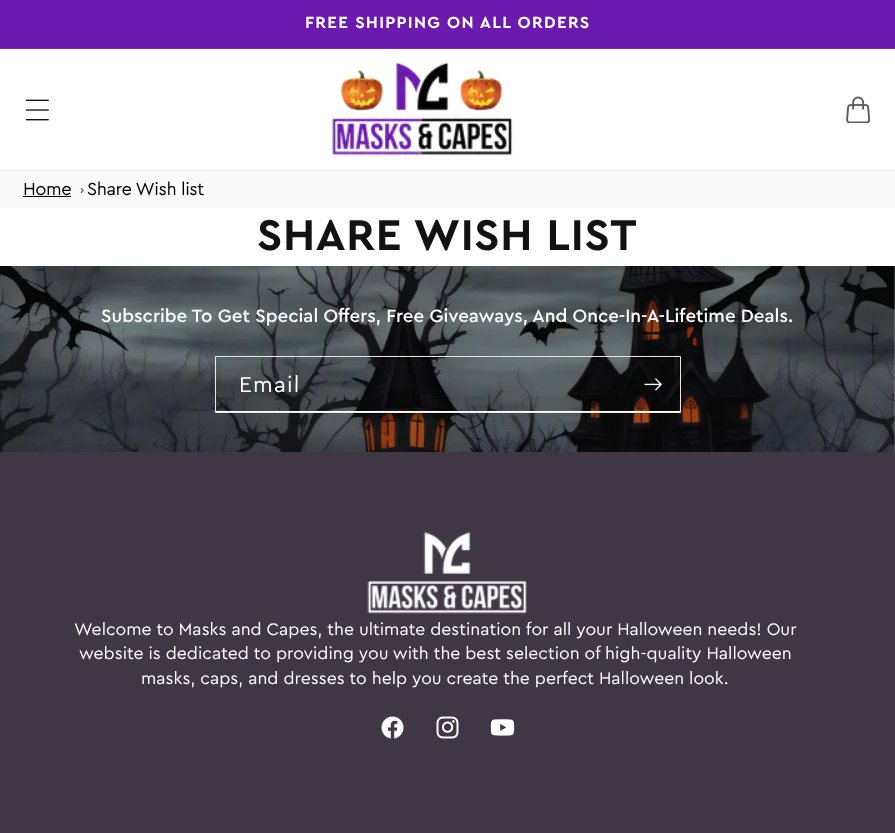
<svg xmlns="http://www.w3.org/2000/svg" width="895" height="833">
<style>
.a{font:bold 16.9px 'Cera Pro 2';letter-spacing:1.25px;fill:#fff}
.b{font:bold 17.5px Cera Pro;fill:#000}
.c{font:bold 45px 'Cera Pro 2';letter-spacing:0.75px;fill:#121212}
.d{font:500 18.75px Cera Pro;fill:#fff}
.e{font:22.5px Cera Pro;letter-spacing:1.25px;fill:#fff}
.f{font:17.5px Cera Pro;letter-spacing:0.03px;fill:#fff}
</style>
<rect width="100%" height="100%" fill="#fff"/>
<path fill="#6c19af" d="M0 0h895v48H0z"/>
<path fill="#782bb5" d="M0 48h895v1H0z"/>
<path fill="#ececec" d="M0 170h895v1H0z"/>
<image href="1.png" x="25" y="99" width="24" height="22"/>
<image href="2.png" x="332" y="62" width="181" height="94"/>
<image href="3.png" x="846" y="96" width="25" height="27"/>
<path fill="#fafafa" d="M0 171h895v37H0z"/>
<path fill="#000" d="M23 196h48v1H23z"/>
<path fill="#4c4c4c" d="M81.5 188l2.5 2.5h-1.5l-2-2z"/>
<path fill="#4c4c4c" d="M84 190.5l-2.5 2.5l-1-.5l2-2z"/>
<path fill="#3f3844" d="M0 451h895v382H0z"/>
<image href="4.png" x="0" y="266" width="895" height="186"/>
<path fill="#fff" d="M215 411h466v1H215z"/>
<path fill="none" stroke="#e8e8e1" d="M215.5 356.5h465v56H215.5z"/>
<image href="5.png" x="644" y="378" width="18" height="13"/>
<image href="6.png" x="367" y="532" width="160" height="82"/>
<image href="7.png" x="381" y="716" width="23" height="23"/>
<image href="8.png" x="436" y="716" width="23" height="23"/>
<image href="9.png" x="490" y="719" width="25" height="17"/>
<text class="a" x="305" y="28">FREE SHIPPING ON ALL ORDERS</text>
<text class="b" x="23" y="195">Home</text>
<text class="b" x="87" y="195">Share Wish list</text>
<text class="c" x="257" y="250">SHARE WISH LIST</text>
<text class="d" x="101" y="322">Subscribe To Get Special Offers, Free Giveaways, And Once-In-A-Lifetime Deals.</text>
<text class="e" x="239" y="392">Email</text>
<text class="f" x="74" y="635">Welcome to Masks and Capes, the ultimate destination for all your Halloween needs! Our</text>
<text class="f" x="79" y="659">website is dedicated to providing you with the best selection of high-quality Halloween</text>
<text class="f" x="141" y="684">masks, caps, and dresses to help you create the perfect Halloween look.</text>
</svg>
